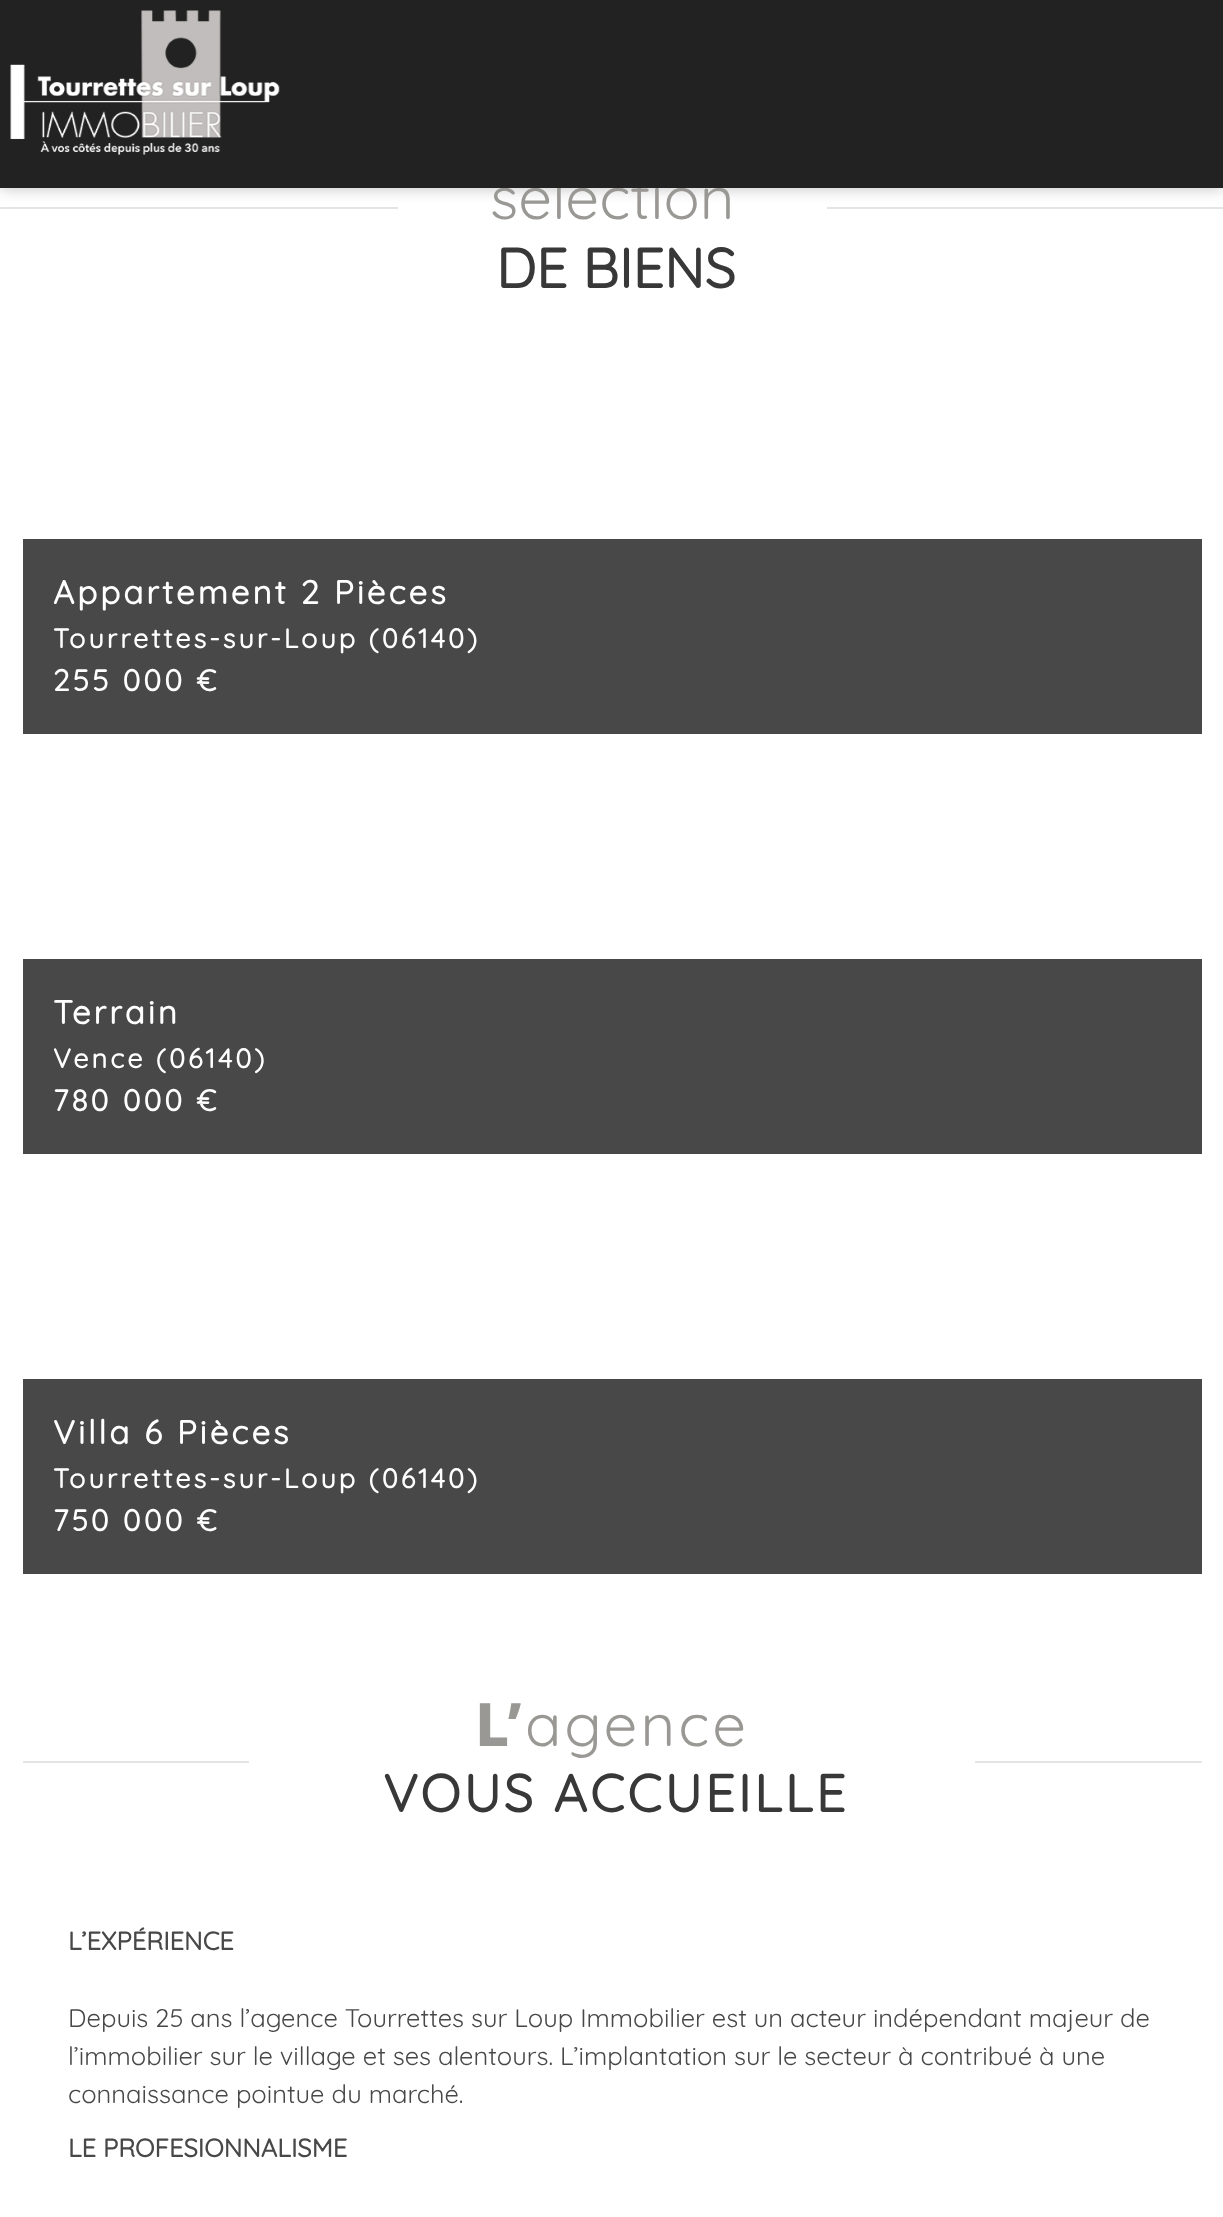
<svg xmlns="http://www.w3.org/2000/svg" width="1223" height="2217">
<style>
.a{font:300 60px Quicksand;fill:#999894}
.b{font:bold 55.5px Quicksand;fill:#383838}
.c{font:bold 33px Quicksand;letter-spacing:3px;fill:#fff}
.d{font:bold 27px Quicksand;letter-spacing:3px;fill:#fff}
.e{font:bold 30px Quicksand;letter-spacing:3px;fill:#fff}
.f{font:800 60px Noto Sans;letter-spacing:3px;fill:#999894}
.g{font:300 60px Quicksand;letter-spacing:3px;fill:#999894}
.h{font:bold 52.5px Quicksand;letter-spacing:3px;fill:#383838}
.i{font:bold 25.5px Quicksand;fill:#484848}
.j{font:300 25.5px Quicksand;fill:#484848}
</style>
<rect width="100%" height="100%" fill="#fff"/>
<path fill="#e5e4e2" d="M0 207h398v2H0z"/>
<path fill="#e5e4e2" d="M827 207h396v2H827z"/>
<path fill="#00000040" filter="blur(7.5px)" d="M0 0h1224v188H0z"/>
<path fill="#484848" d="M23 539h1179v195H23z"/>
<path fill="#484848" d="M23 959h1179v195H23z"/>
<path fill="#484848" d="M23 1379h1179v195H23z"/>
<path fill="#e5e4e2" d="M23 1761h226v2H23z"/>
<path fill="#e5e4e2" d="M975 1761h227v2H975z"/>
<text class="a" x="490" y="219">sélection</text>
<path fill="#232222" d="M0 0h1223v188H0z"/>
<image href="1.png" x="10" y="10" width="270" height="145"/>
<text class="b" x="496" y="288">DE BIENS</text>
<text class="c" x="53" y="604">Appartement 2 Pièces</text>
<text class="d" x="53" y="648">Tourrettes-sur-Loup (06140)</text>
<text class="e" x="53" y="691">255 000 €</text>
<text class="c" x="53" y="1024">Terrain</text>
<text class="d" x="53" y="1068">Vence (06140)</text>
<text class="e" x="53" y="1111">780 000 €</text>
<text class="c" x="53" y="1444">Villa 6 Pièces</text>
<text class="d" x="53" y="1488">Tourrettes-sur-Loup (06140)</text>
<text class="e" x="53" y="1531">750 000 €</text>
<text class="f" x="475" y="1746">L’</text>
<text class="g" x="525" y="1746">agence</text>
<text class="h" x="383" y="1812">VOUS ACCUEILLE</text>
<text class="i" x="68" y="1950">L’EXPÉRIENCE</text>
<text class="j" x="68" y="2027">Depuis 25 ans l’agence Tourrettes sur Loup Immobilier est un acteur indépendant majeur de</text>
<text class="j" x="68" y="2065">l’immobilier sur le village et ses alentours. L’implantation sur le secteur à contribué à une</text>
<text class="j" x="68" y="2103">connaissance pointue du marché.</text>
<text class="i" x="68" y="2157">LE PROFESIONNALISME</text>
</svg>
